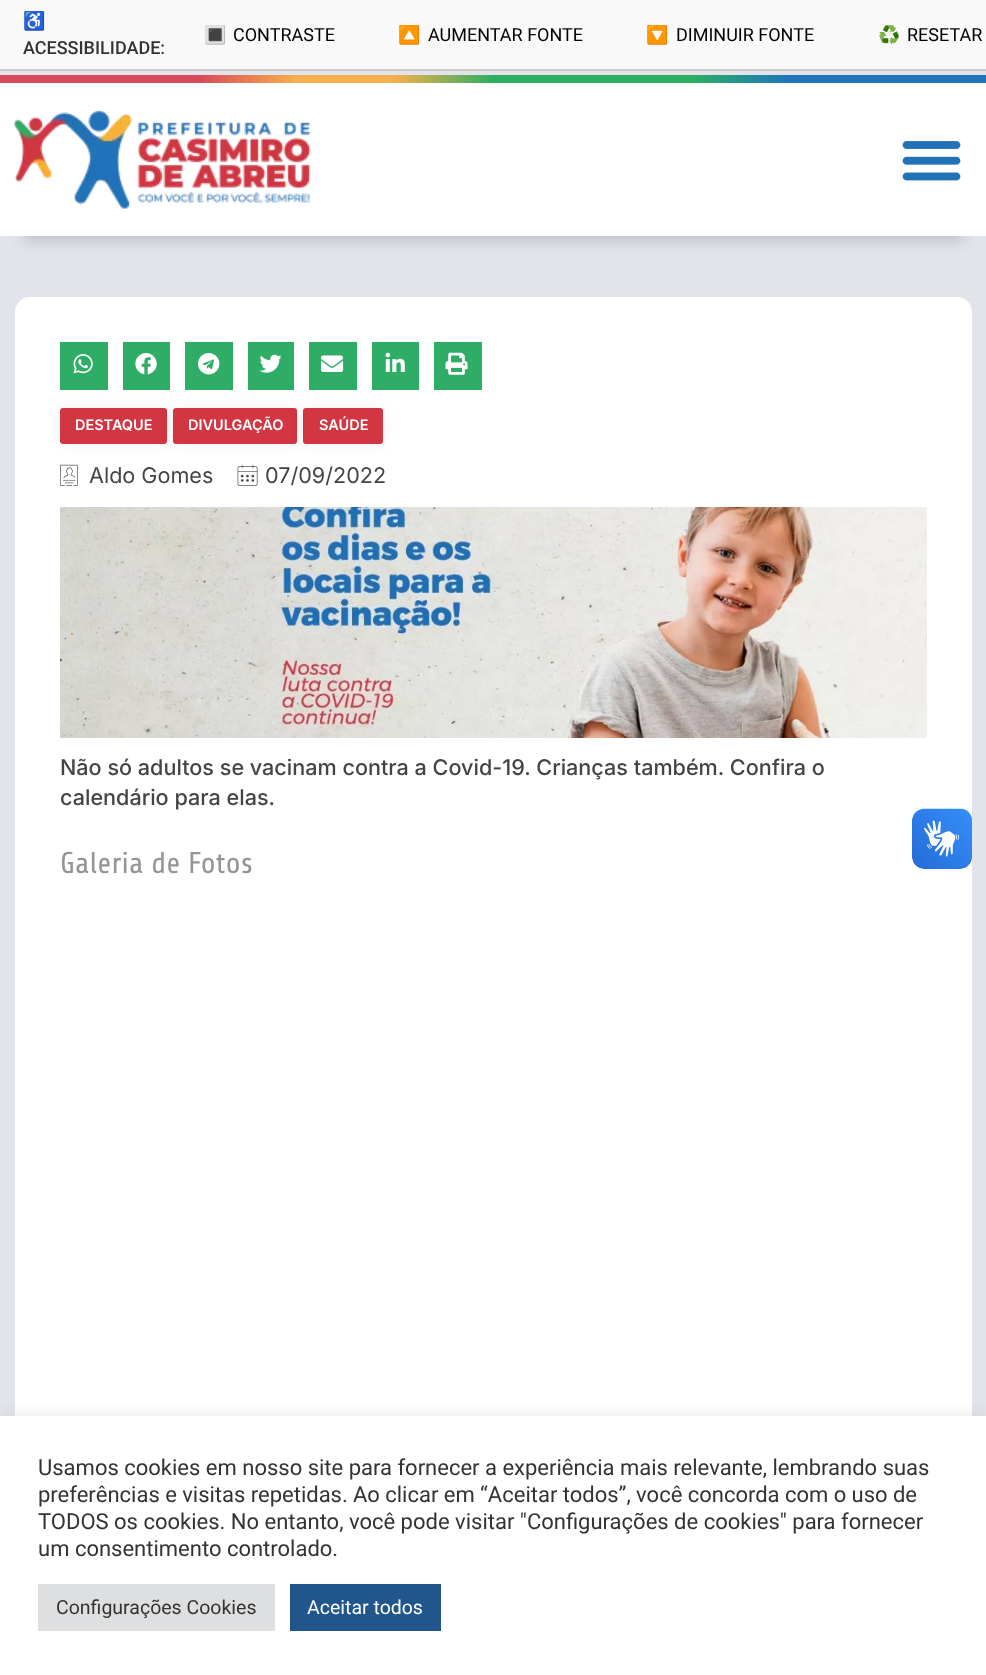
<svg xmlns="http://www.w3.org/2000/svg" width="986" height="1675">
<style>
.a{font:18px Noto Color Emoji;fill:#333}
.b{font:500 18px Roboto;fill:#333}
.c{font:18px Noto Color Emoji;fill:#000}
.d{font:18px Roboto;fill:#000}
.e{font:600 14.5px Inter;fill:#fff}
.f{font:21.6px Inter;fill:#444}
.g{font:500 21.6px Inter;fill:#444}
.h{font:30px Moulpali;fill:#959595}
.i{font:22px Roboto;fill:#333}
.j{font:19.5px Roboto;fill:#333}
.k{font:19.5px Roboto;fill:#fff}
</style>
<defs>
<linearGradient id="g1" gradientUnits="userSpaceOnUse" x1="0" y1="79" x2="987" y2="79"><stop offset="0" stop-color="#d9485a"/><stop offset="0.2" stop-color="#d9485a"/><stop offset="0.3" stop-color="#f6af4d"/><stop offset="0.4" stop-color="#f6af4d"/><stop offset="0.5" stop-color="#2baf62"/><stop offset="0.7" stop-color="#2baf62"/><stop offset="0.8" stop-color="#2074ba"/><stop offset="1" stop-color="#2074ba"/></linearGradient>
</defs>
<rect width="100%" height="100%" fill="#e1e5eb"/>
<path fill="#f9f9f9" d="M0 0h986v69H0z"/>
<path fill="#ccc" d="M0 69h986v2H0z"/>
<path fill="url(#g1)" d="M0 75h986v8H0z"/>
<path fill="#0000002e" filter="blur(7.5px)" d="M24 135h939v105H24z"/>
<path fill="#fff" d="M0 83h986v153H0z"/>
<image href="1.png" x="13" y="110" width="298" height="99"/>
<image href="2.png" x="902" y="141" width="59" height="40"/>
<rect fill="#fff" x="15" y="297" width="957" height="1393" rx="15"/>
<path fill="#2fad66" d="M60 342h48v48H60z"/>
<image href="3.png" x="73" y="354" width="20" height="20"/>
<path fill="#2fad66" d="M123 342h47v48H123z"/>
<image href="4.png" x="135" y="353" width="22" height="22"/>
<path fill="#2fad66" d="M185 342h48v48H185z"/>
<image href="5.png" x="198" y="353" width="22" height="22"/>
<path fill="#2fad66" d="M248 342h46v48H248z"/>
<image href="6.png" x="259" y="354" width="23" height="19"/>
<path fill="#2fad66" d="M309 342h48v48H309z"/>
<image href="7.png" x="321" y="355" width="23" height="17"/>
<path fill="#2fad66" d="M372 342h47v48H372z"/>
<image href="8.png" x="385" y="352" width="20" height="20"/>
<path fill="#2fad66" d="M434 342h48v48H434z"/>
<image href="9.png" x="445" y="352" width="23" height="23"/>
<rect fill="#0000000f" filter="blur(7.5px)" x="60" y="408" width="107" height="36" rx="3"/>
<rect fill="#d13642" x="60" y="408" width="107" height="36" rx="3"/>
<rect fill="#0000000f" filter="blur(7.5px)" x="173" y="408" width="124" height="36" rx="3"/>
<rect fill="#d13642" x="173" y="408" width="124" height="36" rx="3"/>
<rect fill="#0000000f" filter="blur(7.5px)" x="303" y="408" width="80" height="36" rx="3"/>
<rect fill="#d13642" x="303" y="408" width="80" height="36" rx="3"/>
<image href="10.png" x="60" y="464" width="18" height="22"/>
<image href="11.png" x="237" y="464" width="21" height="22"/>
<image href="12.png" x="60" y="507" width="867" height="231"/>
<image href="13.png" x="912" y="808" width="60" height="61"/>
<image href="14.png" x="912" y="809" width="60" height="60"/>
<path fill="#acabab4d" filter="blur(7.5px)" d="M0 1415h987v259H0z"/>
<path fill="#fff" d="M0 1416h986v259H0z"/>
<path fill="#dedfe0" d="M38 1584h237v47H38z"/>
<path fill="#20568c" d="M290 1584h151v47H290z"/>
<text class="a" x="23" y="27">♿</text>
<text class="b" x="23" y="54">ACESSIBILIDADE:</text>
<text class="c" x="204" y="41">🔳</text>
<text class="d" x="233" y="41">CONTRASTE</text>
<text class="c" x="398" y="41">🔼</text>
<text class="d" x="428" y="41">AUMENTAR FONTE</text>
<text class="c" x="646" y="41">🔽</text>
<text class="d" x="676" y="41">DIMINUIR FONTE</text>
<text class="c" x="878" y="41">♻️</text>
<text class="d" x="907" y="41">RESETAR</text>
<text class="e" x="75" y="430">DESTAQUE</text>
<text class="e" x="188" y="430">DIVULGAÇÃO</text>
<text class="e" x="319" y="430">SAÚDE</text>
<text class="f" x="89" y="483">Aldo Gomes</text>
<text class="f" x="265" y="483">07/09/2022</text>
<text class="g" x="60" y="775">Não só adultos se vacinam contra a Covid-19. Crianças também. Confira o</text>
<text class="g" x="60" y="805">calendário para elas.</text>
<text class="h" x="60" y="873">Galeria de Fotos</text>
<text class="i" x="38" y="1475">Usamos cookies em nosso site para fornecer a experiência mais relevante, lembrando suas</text>
<text class="i" x="38" y="1502" word-spacing="-0.1">preferências e visitas repetidas. Ao clicar em “Aceitar todos”, você concorda com o uso de</text>
<text class="i" x="38" y="1529">TODOS os cookies. No entanto, você pode visitar "Configurações de cookies" para fornecer</text>
<text class="i" x="38" y="1556">um consentimento controlado.</text>
<text class="j" x="56" y="1614">Configurações Cookies</text>
<text class="k" x="307" y="1614">Aceitar todos</text>
</svg>
